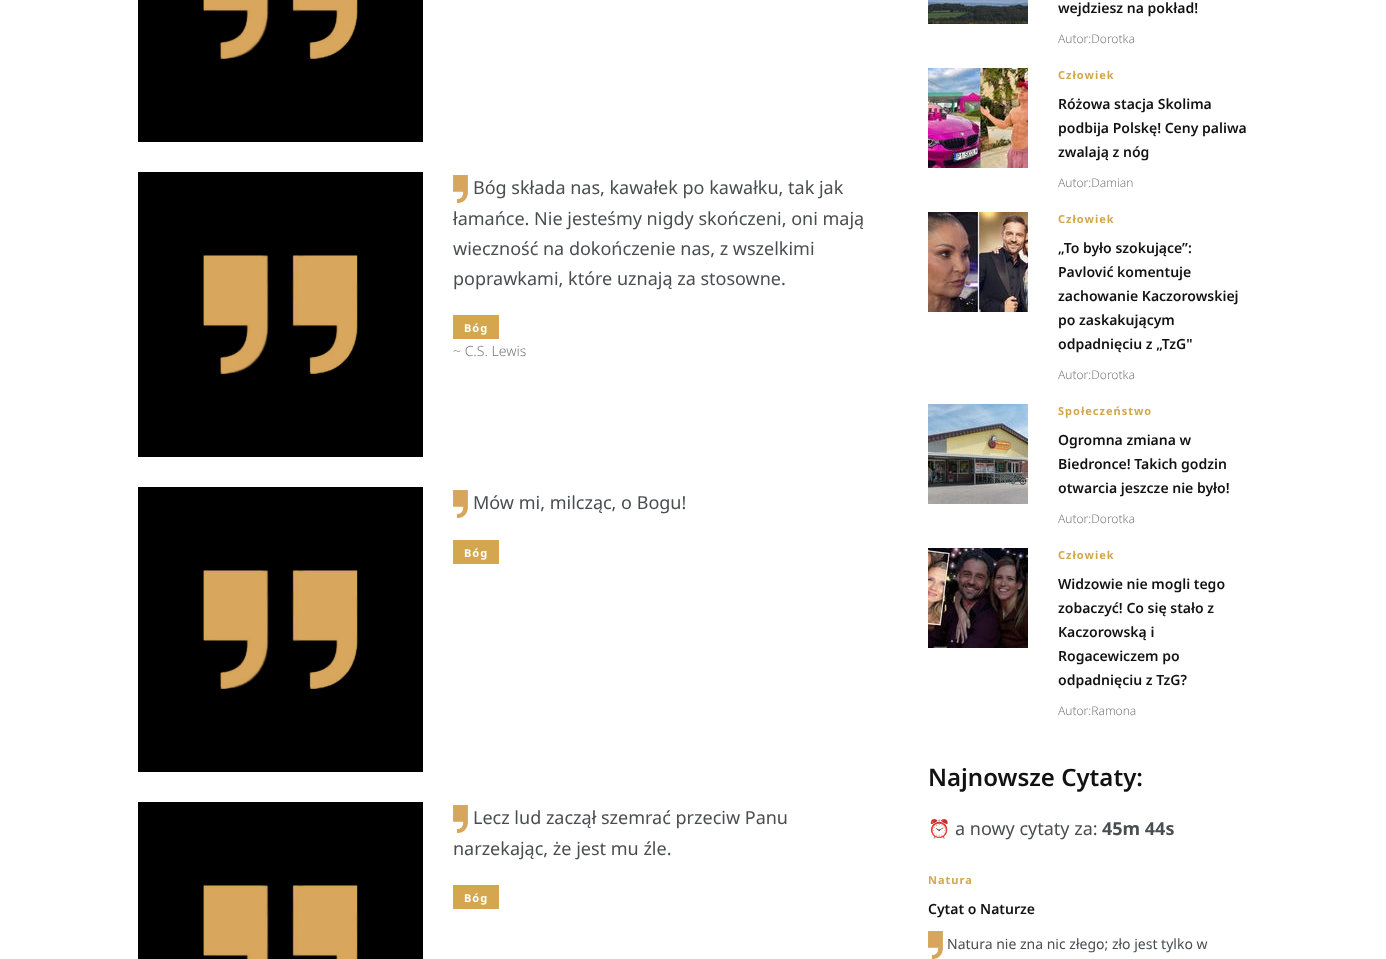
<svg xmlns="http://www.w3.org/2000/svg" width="1386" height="959">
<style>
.a{font:18px Noto Sans;fill:#494e51}
.b{font:bold 11px Noto Sans;letter-spacing:1px;fill:#fff}
.c{font:300 14px Noto Sans;fill:#7b7b7b}
.d{font:600 14px Noto Sans;fill:#121213}
.e{font:300 12px Noto Sans;fill:#7b7b7b}
.f{font:bold 11px Noto Sans;letter-spacing:1px;fill:#d4a64e}
.g{font:600 24px Noto Sans;fill:#121213}
.h{font:18px Noto Color Emoji;fill:#494e51}
.i{font:bold 18px Noto Sans;fill:#494e51}
.j{font:14px Noto Sans;fill:#494e51}
</style>
<rect width="100%" height="100%" fill="#fff"/>
<image href="1.png" x="138" y="0" width="285" height="142"/>
<image href="2.png" x="138" y="172" width="285" height="285"/>
<image href="3.png" x="453" y="175" width="15" height="28"/>
<path fill="#d4a64e" d="M453 315h46v24H453z"/>
<image href="4.png" x="138" y="487" width="285" height="285"/>
<image href="5.png" x="453" y="490" width="15" height="28"/>
<path fill="#d4a64e" d="M453 540h46v24H453z"/>
<image href="6.png" x="138" y="802" width="285" height="157"/>
<image href="5.png" x="453" y="805" width="15" height="28"/>
<path fill="#d4a64e" d="M453 885h46v24H453z"/>
<image href="7.png" x="928" y="0" width="100" height="24"/>
<image href="8.png" x="928" y="68" width="100" height="100"/>
<image href="9.png" x="928" y="212" width="100" height="100"/>
<image href="10.png" x="928" y="404" width="100" height="100"/>
<image href="11.png" x="928" y="548" width="100" height="100"/>
<image href="5.png" x="928" y="931" width="15" height="28"/>
<text class="a" x="473" y="194">Bóg składa nas, kawałek po kawałku, tak jak</text>
<text class="a" x="453" y="225">łamańce. Nie jesteśmy nigdy skończeni, oni mają</text>
<text class="a" x="453" y="255">wieczność na dokończenie nas, z wszelkimi</text>
<text class="a" x="453" y="285">poprawkami, które uznają za stosowne.</text>
<text class="b" x="464" y="332">Bóg</text>
<text class="c" x="453" y="356">~ C.S. Lewis</text>
<text class="a" x="473" y="509">Mów mi, milcząc, o Bogu!</text>
<text class="b" x="464" y="557">Bóg</text>
<text class="a" x="473" y="824">Lecz lud zaczął szemrać przeciw Panu</text>
<text class="a" x="453" y="855">narzekając, że jest mu źle.</text>
<text class="b" x="464" y="902">Bóg</text>
<text class="d" x="1058" y="13">wejdziesz na pokład!</text>
<text class="e" x="1058" y="43">Autor:Dorotka</text>
<text class="f" x="1058" y="79">Człowiek</text>
<text class="d" x="1058" y="109">Różowa stacja Skolima</text>
<text class="d" x="1058" y="133">podbija Polskę! Ceny paliwa</text>
<text class="d" x="1058" y="157">zwalają z nóg</text>
<text class="e" x="1058" y="187">Autor:Damian</text>
<text class="f" x="1058" y="223">Człowiek</text>
<text class="d" x="1058" y="253">„To było szokujące”:</text>
<text class="d" x="1058" y="277">Pavlović komentuje</text>
<text class="d" x="1058" y="301">zachowanie Kaczorowskiej</text>
<text class="d" x="1058" y="325">po zaskakującym</text>
<text class="d" x="1058" y="349">odpadnięciu z „TzG"</text>
<text class="e" x="1058" y="379">Autor:Dorotka</text>
<text class="f" x="1058" y="415">Społeczeństwo</text>
<text class="d" x="1058" y="445">Ogromna zmiana w</text>
<text class="d" x="1058" y="469">Biedronce! Takich godzin</text>
<text class="d" x="1058" y="493">otwarcia jeszcze nie było!</text>
<text class="e" x="1058" y="523">Autor:Dorotka</text>
<text class="f" x="1058" y="559">Człowiek</text>
<text class="d" x="1058" y="589">Widzowie nie mogli tego</text>
<text class="d" x="1058" y="613">zobaczyć! Co się stało z</text>
<text class="d" x="1058" y="637">Kaczorowską i</text>
<text class="d" x="1058" y="661">Rogacewiczem po</text>
<text class="d" x="1058" y="685">odpadnięciu z TzG?</text>
<text class="e" x="1058" y="715">Autor:Ramona</text>
<text class="g" x="928" y="786">Najnowsze Cytaty:</text>
<text class="h" x="928" y="835">⏰</text>
<text class="a" x="955" y="835">a nowy cytaty za:</text>
<text class="i" x="1102" y="835">45m 44s</text>
<text class="f" x="928" y="884">Natura</text>
<text class="d" x="928" y="914">Cytat o Naturze</text>
<text class="j" x="947" y="949">Natura nie zna nic złego; zło jest tylko w</text>
</svg>
